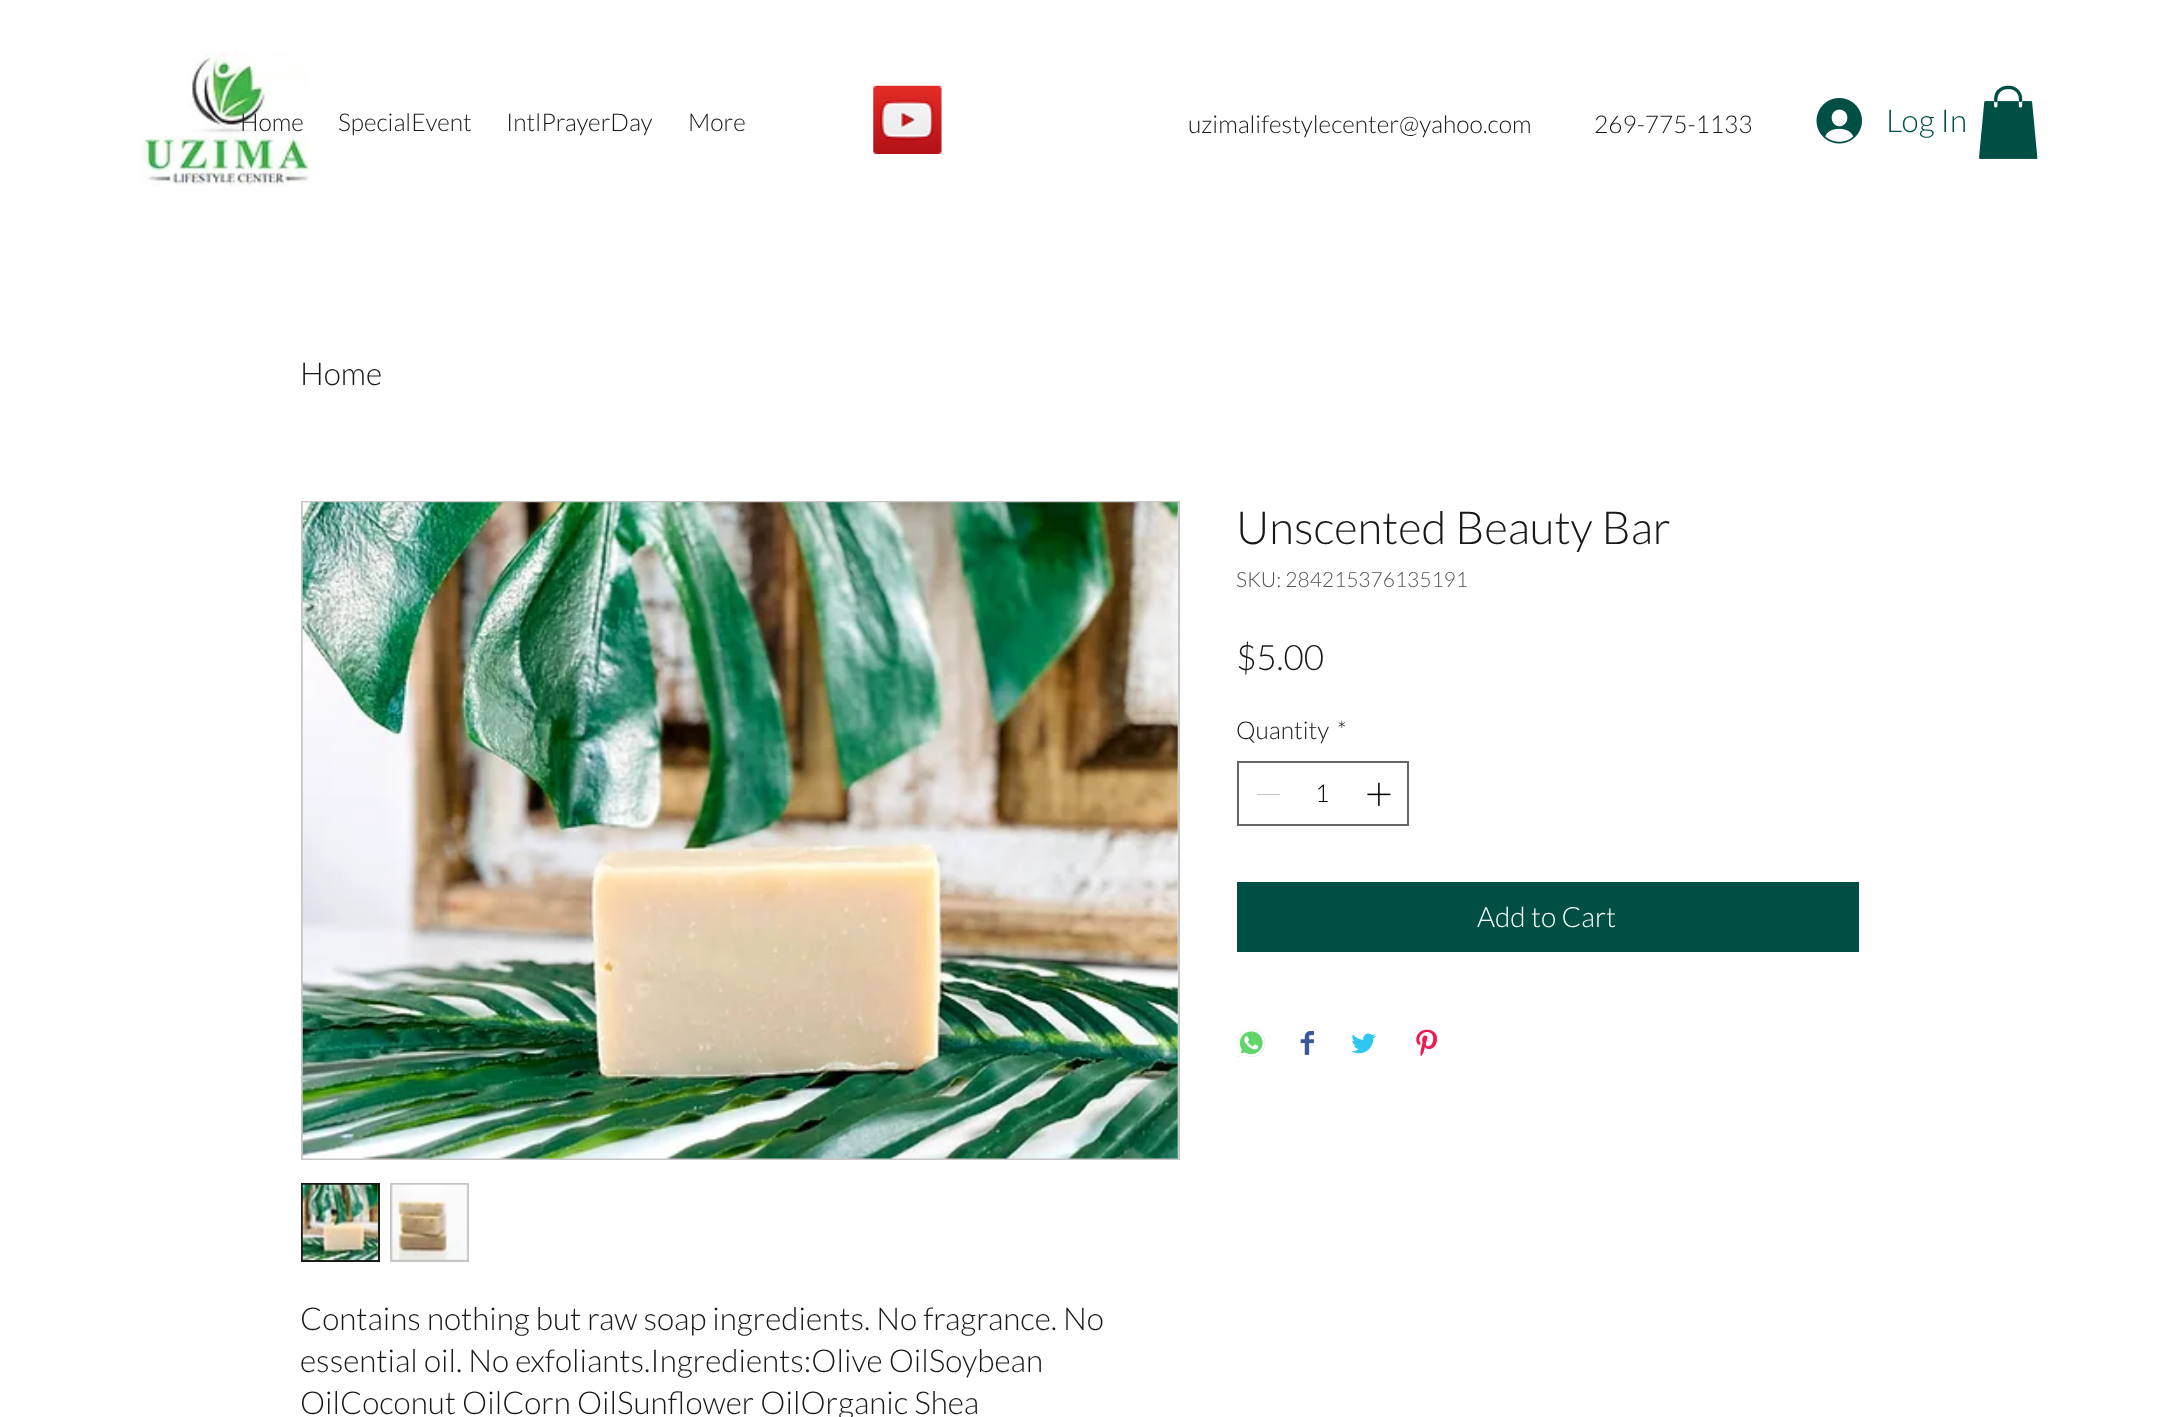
<svg xmlns="http://www.w3.org/2000/svg" width="2157" height="1417">
<style>
.a{font:300 24.5px Lato;fill:#181818}
.b{font:300 31.5px Lato;fill:#004f45}
.c{font:300 31.5px Lato;fill:#181818}
.d{font:300 45.5px Lato;fill:#181818}
.e{font:300 21px Lato;fill:#525252}
.f{font:300 35px Lato;fill:#181818}
.g{font:300 24.5px Lato;fill:#000}
.h{font:300 28px Lato;fill:#fff}
</style>
<rect width="100%" height="100%" fill="#fff"/>
<image href="1.png" x="140" y="52" width="169" height="134"/>
<image href="2.png" x="873" y="85" width="69" height="69"/>
<image href="3.png" x="1816" y="98" width="46" height="46"/>
<image href="4.png" x="1979" y="85" width="59" height="74"/>
<path fill="none" stroke="#666" stroke-width="2" d="M1238 762h170v63H1238z"/>
<path fill="#c7c7c7" d="M1257 794h23v1H1257z"/>
<image href="5.png" x="1367" y="782" width="24" height="24"/>
<path fill="#004f45" d="M1237 882h622v70H1237z"/>
<image href="6.png" x="1237" y="1029" width="28" height="28"/>
<image href="7.png" x="1300" y="1031" width="14" height="24"/>
<image href="8.png" x="1351" y="1033" width="25" height="21"/>
<image href="9.png" x="1416" y="1029" width="21" height="28"/>
<path fill="none" stroke="#c5c5c5" stroke-width="2" d="M302 502h877v657H302z"/>
<image href="10.png" x="302" y="502" width="876" height="657"/>
<path fill="#c5c5c5" stroke="#181818" stroke-width="2" d="M302 1184h77v77H302z"/>
<image href="11.png" x="302" y="1184" width="77" height="77"/>
<path fill="#c5c5c5" d="M390 1183h79v79H390z"/>
<image href="12.png" x="391" y="1184" width="77" height="76"/>
<text class="a" x="240" y="131">Home</text>
<text class="a" x="338" y="131">SpecialEvent</text>
<text class="a" x="506" y="131">IntlPrayerDay</text>
<text class="a" x="688" y="131">More</text>
<text class="a" x="1188" y="133">uzimalifestylecenter@yahoo.com</text>
<text class="a" x="1594" y="133">269-775-1133</text>
<text class="b" x="1886" y="132">Log In</text>
<text class="c" x="300" y="385">Home</text>
<text class="d" x="1236" y="544">Unscented Beauty Bar</text>
<text class="e" x="1236" y="587">SKU: 284215376135191</text>
<text class="f" x="1236" y="670">$5.00</text>
<text class="a" x="1236" y="739">Quantity</text>
<text class="a" x="1337" y="739">*</text>
<text class="g" x="1315" y="802">1</text>
<text class="h" x="1477" y="927">Add to Cart</text>
<text class="c" x="300" y="1330">Contains nothing but raw soap ingredients. No fragrance. No</text>
<text class="c" x="300" y="1372">essential oil. No exfoliants.Ingredients:Olive OilSoybean</text>
<text class="c" x="300" y="1414">OilCoconut OilCorn OilSunflower OilOrganic Shea</text>
</svg>
